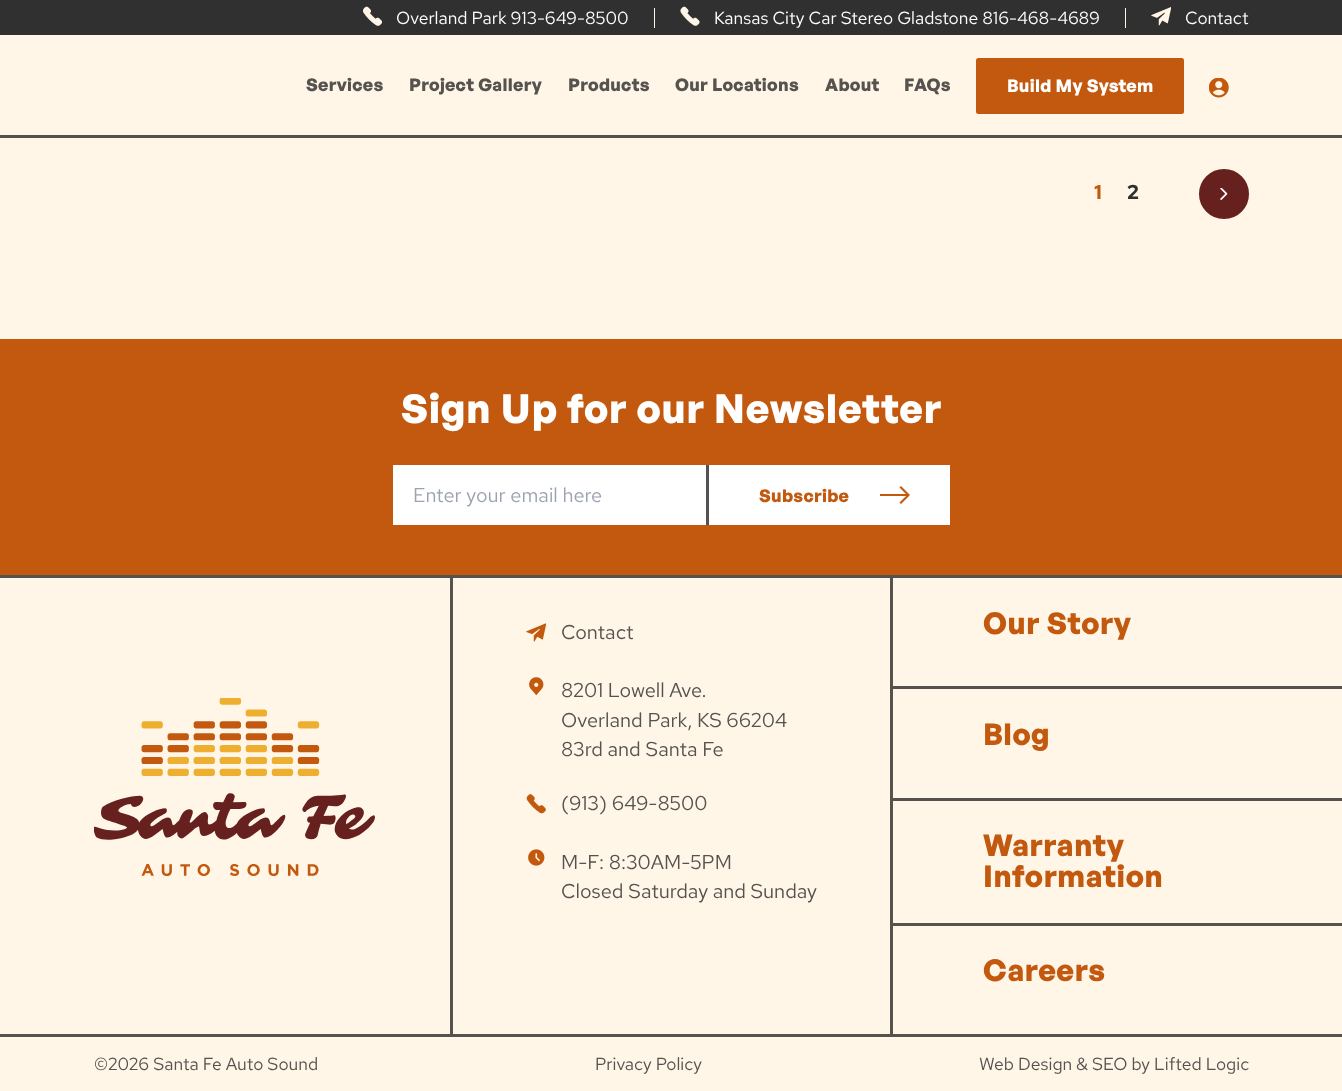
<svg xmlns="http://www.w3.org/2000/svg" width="1342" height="1091">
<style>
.a{font:17.5px Red Hat Text;fill:#fff}
.b{font:bold 17.5px General Sans;letter-spacing:0.3px;fill:#555250}
.c{font:bold 17.5px General Sans;letter-spacing:0.3px;fill:#fff}
.d{font:bold 20px Red Hat Text;fill:#c2590e}
.e{font:bold 20px Red Hat Text;fill:#303030}
.f{font:bold 40px General Sans;letter-spacing:0.8px;fill:#fff}
.g{font:20px Red Hat Text;fill:#9ca3af}
.h{font:bold 17.5px General Sans;letter-spacing:0.3px;fill:#c2590e}
.i{font:20px Red Hat Text;fill:#555250}
.j{font:bold 30px General Sans;letter-spacing:0.6px;fill:#c2590e}
.k{font:17.5px Red Hat Text;fill:#555250}
</style>
<rect width="100%" height="100%" fill="#fff6e7"/>
<path fill="#303030" d="M0 0h1342v35H0z"/>
<image href="1.png" x="363" y="6" width="20" height="20"/>
<path fill="#fff6e7" d="M654 8h1v20H654z"/>
<image href="2.png" x="680" y="6" width="20" height="20"/>
<path fill="#fff6e7" d="M1125 8h1v20H1125z"/>
<image href="3.png" x="1151" y="7" width="20" height="19"/>
<rect fill="#c2590e" x="976" y="58" width="208" height="56" rx="2.5"/>
<image href="4.png" x="1209" y="78" width="20" height="20"/>
<path fill="#555250" d="M0 135h1342v3H0z"/>
<circle fill="#66211f" stroke="#66211f" stroke-width="4" cx="1224" cy="194" r="23"/>
<image href="5.png" x="1220" y="188" width="8" height="12"/>
<path fill="#c2590e" d="M0 339h1342v236H0z"/>
<path fill="#fff" d="M393 465h313v60H393z"/>
<path fill="#fff" d="M709 465h241v60H709z"/>
<path fill="#555250" d="M706 465h3v60H706z"/>
<path fill="#c2590e" d="M880 494h29v2H880z"/>
<path fill="#c2590e" d="M907 495l-7.5-7.5l1.5-1.5l9 9l-9 9l-1.5-1.5z"/>
<path fill="#555250" d="M0 575h1342v3H0z"/>
<path fill="#555250" d="M0 1034h1342v3H0z"/>
<path fill="#555250" d="M450 578h3v456H450z"/>
<image href="6.png" x="94" y="698" width="281" height="178"/>
<image href="7.png" x="526" y="623" width="20" height="19"/>
<image href="8.png" x="529" y="677" width="15" height="19"/>
<image href="9.png" x="526" y="794" width="20" height="20"/>
<image href="10.png" x="528" y="849" width="17" height="17"/>
<path fill="#555250" d="M890 578h3v456H890z"/>
<path fill="#555250" d="M893 686h449v3H893z"/>
<path fill="#555250" d="M893 798h449v3H893z"/>
<path fill="#555250" d="M893 923h449v3H893z"/>
<text class="a" x="396" y="24">Overland Park 913-649-8500</text>
<text class="a" x="714" y="24">Kansas City Car Stereo Gladstone 816-468-4689</text>
<text class="a" x="1185" y="24">Contact</text>
<text class="b" x="306" y="91">Services</text>
<text class="b" x="409" y="91">Project Gallery</text>
<text class="b" x="568" y="91">Products</text>
<text class="b" x="675" y="91">Our Locations</text>
<text class="b" x="825" y="91">About</text>
<text class="b" x="904" y="91">FAQs</text>
<text class="c" x="1007" y="92">Build My System</text>
<text class="d" x="1094" y="199">1</text>
<text class="e" x="1127" y="199">2</text>
<text class="f" x="401" y="423">Sign Up for our Newsletter</text>
<text class="g" x="413" y="502">Enter your email here</text>
<text class="h" x="759" y="502">Subscribe</text>
<text class="i" x="561" y="639">Contact</text>
<text class="i" x="561" y="697">8201 Lowell Ave.</text>
<text class="i" x="561" y="727">Overland Park, KS 66204</text>
<text class="i" x="561" y="756">83rd and Santa Fe</text>
<text class="i" x="561" y="810">(913) 649-8500</text>
<text class="i" x="561" y="869">M-F: 8:30AM-5PM</text>
<text class="i" x="561" y="898">Closed Saturday and Sunday</text>
<text class="j" x="983" y="634">Our Story</text>
<text class="j" x="983" y="745">Blog</text>
<text class="j" x="983" y="856">Warranty</text>
<text class="j" x="983" y="887">Information</text>
<text class="j" x="983" y="981">Careers</text>
<text class="k" x="94" y="1070">©2026 Santa Fe Auto Sound</text>
<text class="k" x="595" y="1070">Privacy Policy</text>
<text class="k" x="979" y="1070">Web Design &amp; SEO by Lifted Logic</text>
</svg>
